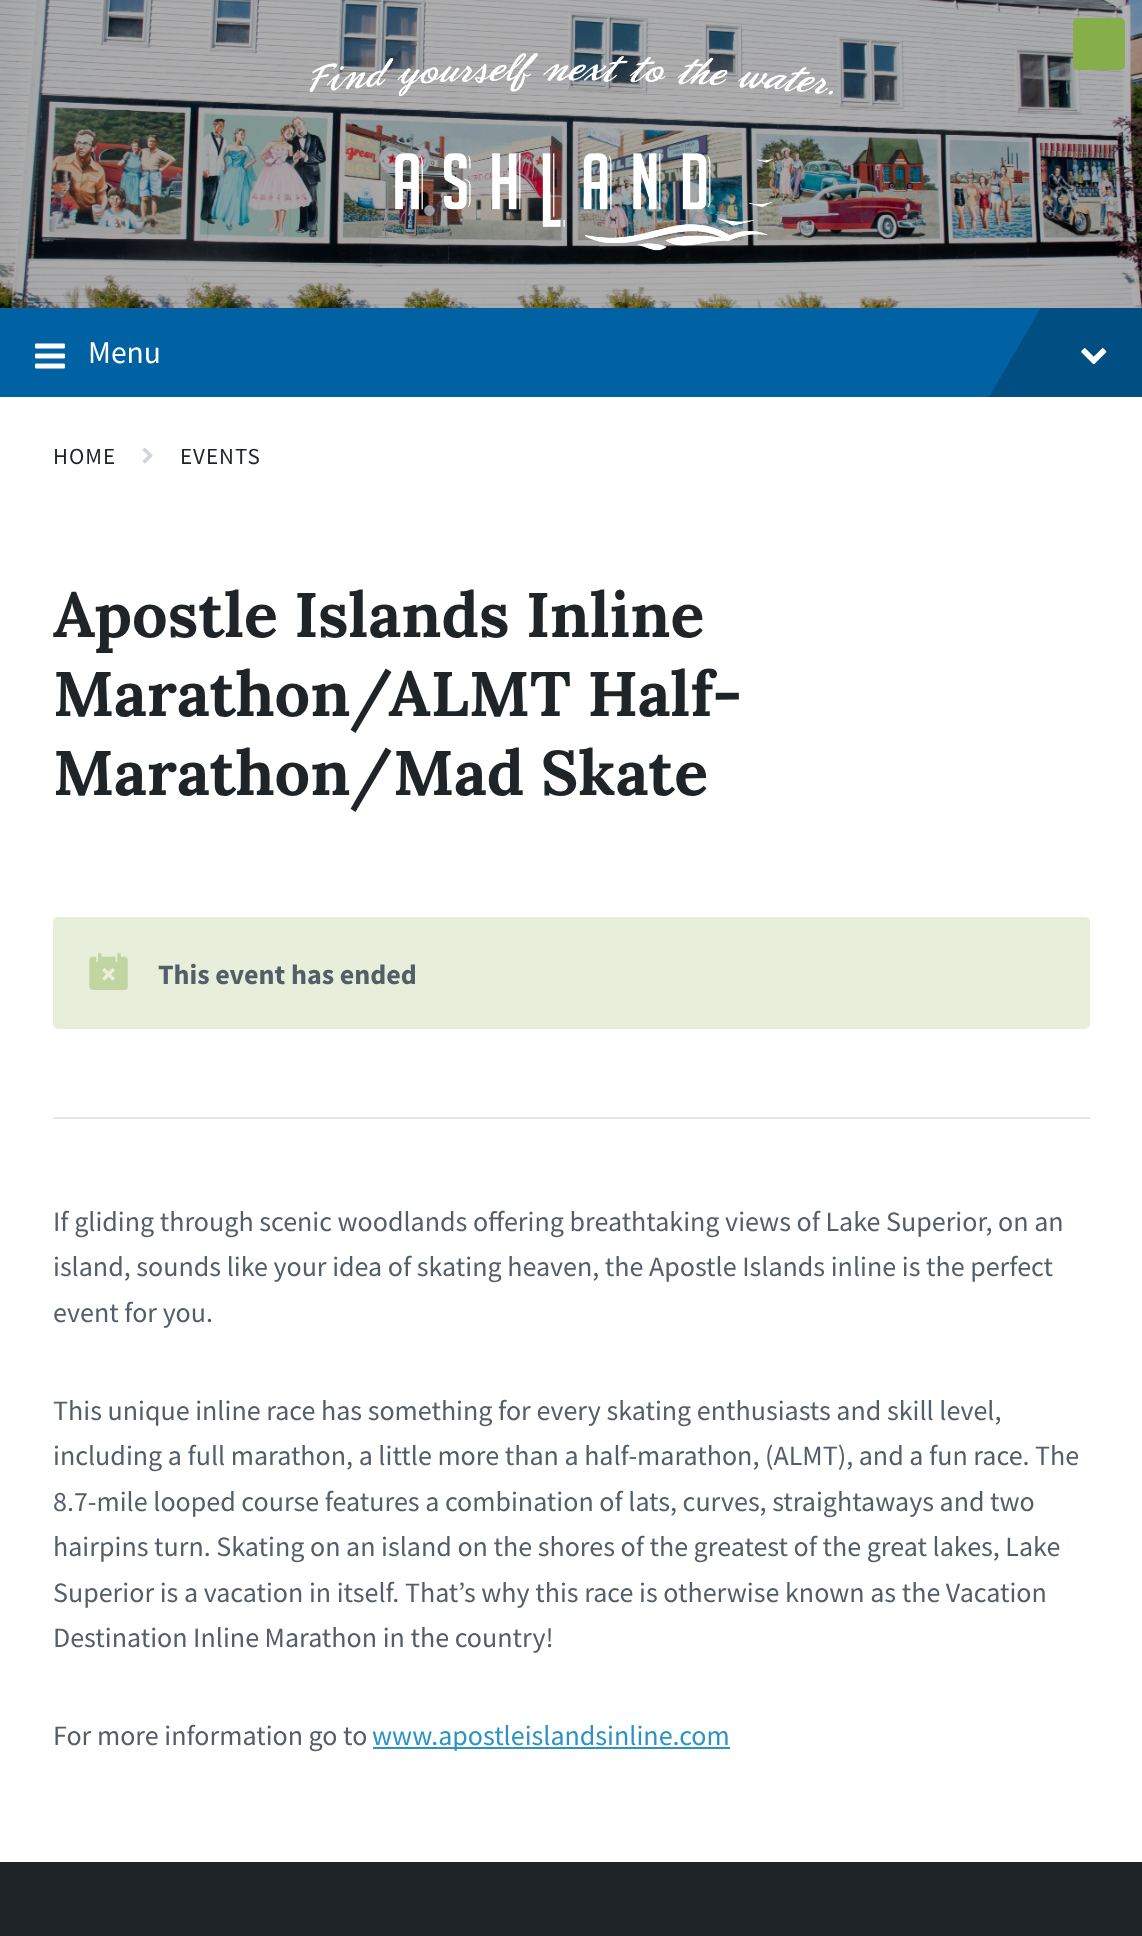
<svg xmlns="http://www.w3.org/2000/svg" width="1142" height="1936">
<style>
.a{font:31.5px Source Sans Pro;fill:#fff}
.b{font:23px Source Sans Pro;letter-spacing:1px;fill:#1e2427}
.c{font:bold 63px Lora;fill:#1e2427}
.d{font:bold 28px Source Sans Pro;fill:#545e69}
.e{font:28px Source Sans Pro;fill:#545e69}
.f{font:28px Source Sans Pro;fill:#2d93c5}
</style>
<defs>
<clipPath id="clip1"><path d="M0 308h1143v89H0z"/></clipPath>
</defs>
<rect width="100%" height="100%" fill="#fff"/>
<image href="1.png" x="0" y="0" width="1142" height="308"/>
<image href="2.png" x="309" y="53" width="524" height="198"/>
<rect fill="#86af49" x="1073" y="18" width="52" height="52" rx="5"/>
<path fill="#0062a3" d="M0 308h1041v89H0z"/>
<image href="3.png" x="35" y="343" width="30" height="26"/>
<g clip-path="url(#clip1)">
<path fill="#004e82" d="M1074 251l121 70l-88 153l-122-70z"/>
</g>
<image href="4.png" x="1081" y="348" width="26" height="17"/>
<image href="5.png" x="142" y="447" width="11" height="17"/>
<rect fill="#e7efdb" x="53" y="917" width="1037" height="112" rx="5"/>
<image href="6.png" x="89" y="953" width="39" height="37"/>
<path fill="#e1e7ec" d="M53 1117h1037v2H53z"/>
<path fill="#2d93c5" d="M373 1747h357v2H373z"/>
<path fill="#1e2427" d="M0 1862h1142v74H0z"/>
<text class="a" x="88" y="363">Menu</text>
<text class="b" x="53" y="464">HOME</text>
<text class="b" x="180" y="464">EVENTS</text>
<text class="c" x="53" y="637">Apostle Islands Inline</text>
<text class="c" x="53" y="716">Marathon/ALMT Half-</text>
<text class="c" x="53" y="795">Marathon/Mad Skate</text>
<text class="d" x="158" y="984">This event has ended</text>
<text class="e" x="53" y="1231">If gliding through scenic woodlands offering breathtaking views of Lake Superior, on an</text>
<text class="e" x="53" y="1276">island, sounds like your idea of skating heaven, the Apostle Islands inline is the perfect</text>
<text class="e" x="53" y="1322">event for you.</text>
<text class="e" x="53" y="1420">This unique inline race has something for every skating enthusiasts and skill level,</text>
<text class="e" x="53" y="1465">including a full marathon, a little more than a half-marathon, (ALMT), and a fun race. The</text>
<text class="e" x="53" y="1511">8.7-mile looped course features a combination of lats, curves, straightaways and two</text>
<text class="e" x="53" y="1556">hairpins turn. Skating on an island on the shores of the greatest of the great lakes, Lake</text>
<text class="e" x="53" y="1602">Superior is a vacation in itself. That’s why this race is otherwise known as the Vacation</text>
<text class="e" x="53" y="1647">Destination Inline Marathon in the country!</text>
<text class="e" x="53" y="1745">For more information go to</text>
<text class="f" x="372" y="1745">www.apostleislandsinline.com</text>
</svg>
